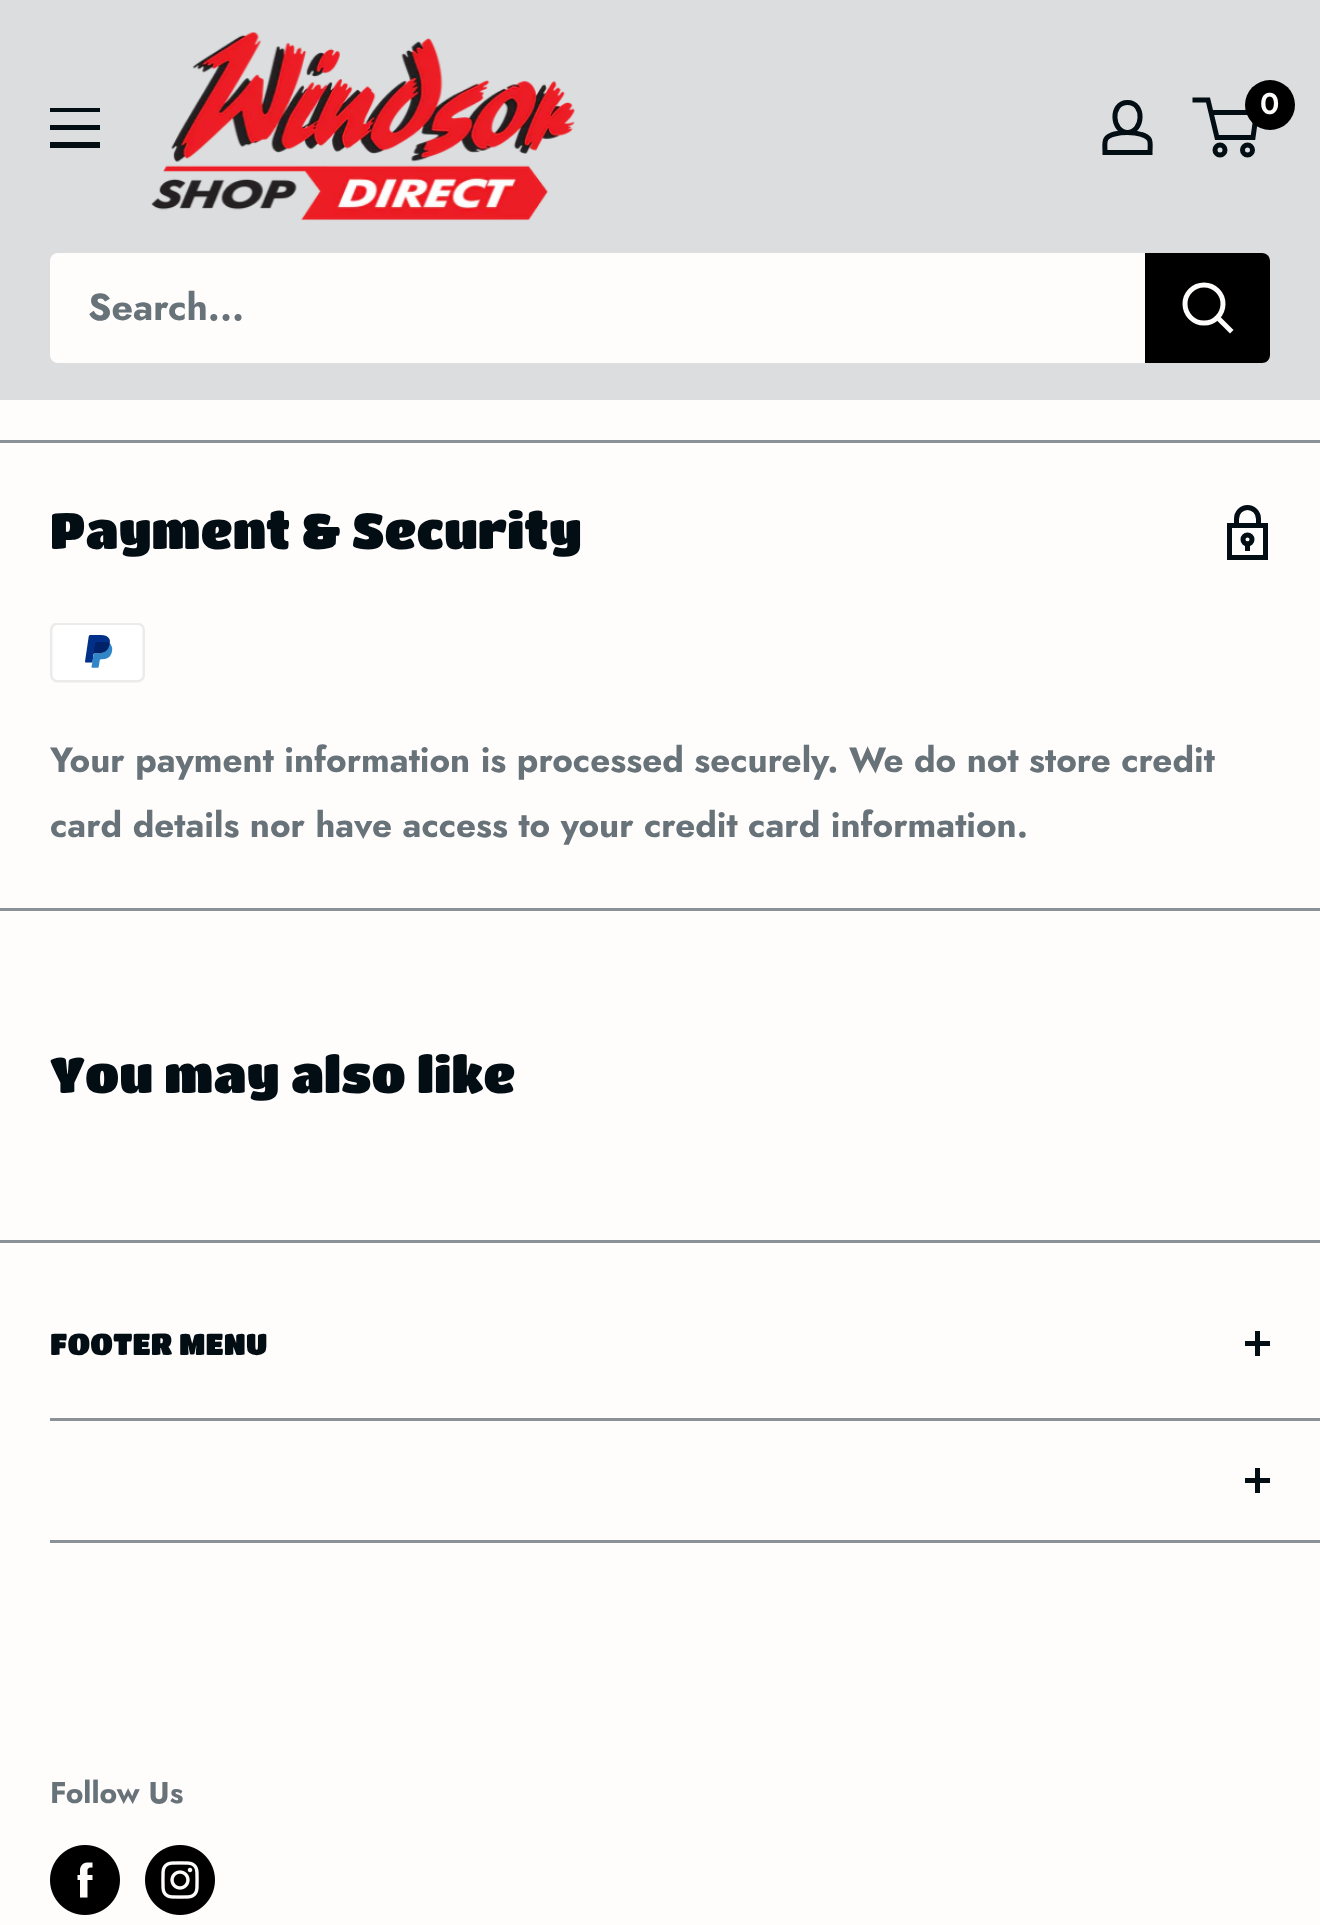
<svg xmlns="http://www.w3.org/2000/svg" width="1320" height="1925">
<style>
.a{font:600 30px Jost;fill:#fffcfc}
.b{font:bold 37.5px Jost;fill:#677279}
.c{font:50px Titan One;fill:#020d14}
.d{font:bold 35px Jost;fill:#677279}
.e{font:30px Titan One;fill:#020d14}
.f{font:bold 30px Jost;fill:#677279}
</style>
<rect width="100%" height="100%" fill="#fffcfc"/>
<path fill="#dcddde" d="M0 0h1320v400H0z"/>
<image href="1.png" x="151" y="32" width="424" height="189"/>
<path fill="none" stroke="#020d14" stroke-width="5" d="M1127.5 132.5c4.5 0 9.5 .5 14 2c11 3 8.5 8.5 8.5 18h-45c0-10-2.5-15.5 9.5-18.5c4-1 8.5-1.5 13-1.5zm0 0c-15.5 0-18-30 0-30c18 0 15.5 30 0 30z"/>
<circle fill="none" stroke="#020d14" stroke-width="5" cx="1220" cy="150" r="5"/>
<circle fill="none" stroke="#020d14" stroke-width="5" cx="1247.5" cy="150" r="5"/>
<path fill="none" stroke="#020d14" stroke-width="5" d="M1211 112.5h45.5l-3.5 25h-36l-9-37.5h-15.5"/>
<circle fill="#000" cx="1270" cy="105" r="25"/>
<path fill="#020d14" fill-rule="evenodd" d="M50 142h50v6h-50zm0-34h50v4h-50zm0 17h50v5h-50z"/>
<rect fill="#fffcfc" x="50" y="253" width="1220" height="110" rx="8"/>
<path fill="#000" d="M1145 253h117c4.5 0 8 3.5 8 8v94c0 4.5-3.5 8-8 8h-117z"/>
<path fill="none" stroke="#fffcfc" stroke-width="5" stroke-linecap="square" d="M1230 330l-12.5-12.5"/>
<circle fill="none" stroke="#fffcfc" stroke-width="5" cx="1204" cy="304" r="19"/>
<path fill="#8a9297" d="M0 440h1320v3H0z"/>
<path fill="#8a9297" d="M0 908h1320v3H0z"/>
<path fill="none" stroke="#020d14" stroke-width="5" stroke-linecap="square" d="M1247.5 507.5c-6 0-11 5-11 11.5v6.5h22v-6.5c0-6.5-5-11.5-11-11.5zm-18 18h36v32h-36z"/>
<circle fill="none" stroke="#020d14" stroke-width="5" cx="1247.5" cy="539.5" r="4.5"/>
<path fill="none" stroke="#020d14" stroke-width="5" stroke-linecap="square" d="M1247.5 544v4.5"/>
<image href="2.png" x="50" y="623" width="95" height="60"/>
<path fill="#8a9297" d="M0 1240h1320v3H0z"/>
<path fill="#8a9297" d="M50 1418h1270v3H50z"/>
<path fill="#020d14" d="M1255 1331h5v25H1255z"/>
<path fill="#020d14" d="M1245 1341h25v5H1245z"/>
<path fill="#8a9297" d="M50 1540h1270v3H50z"/>
<path fill="#020d14" d="M1255 1468h5v25H1255z"/>
<path fill="#020d14" d="M1245 1478h25v5H1245z"/>
<image href="3.png" x="50" y="1845" width="70" height="70"/>
<image href="4.png" x="145" y="1845" width="70" height="70"/>
<text class="a" x="1260" y="114">0</text>
<text class="b" x="88" y="320">Search...</text>
<text class="c" x="50" y="549">Payment &amp; Security</text>
<text class="d" x="50" y="772">Your payment information is processed securely. We do not store credit</text>
<text class="d" x="50" y="837">card details nor have access to your credit card information.</text>
<text class="c" x="50" y="1093">You may also like</text>
<text class="e" x="50" y="1355">FOOTER MENU</text>
<text class="f" x="50" y="1803">Follow Us</text>
</svg>
